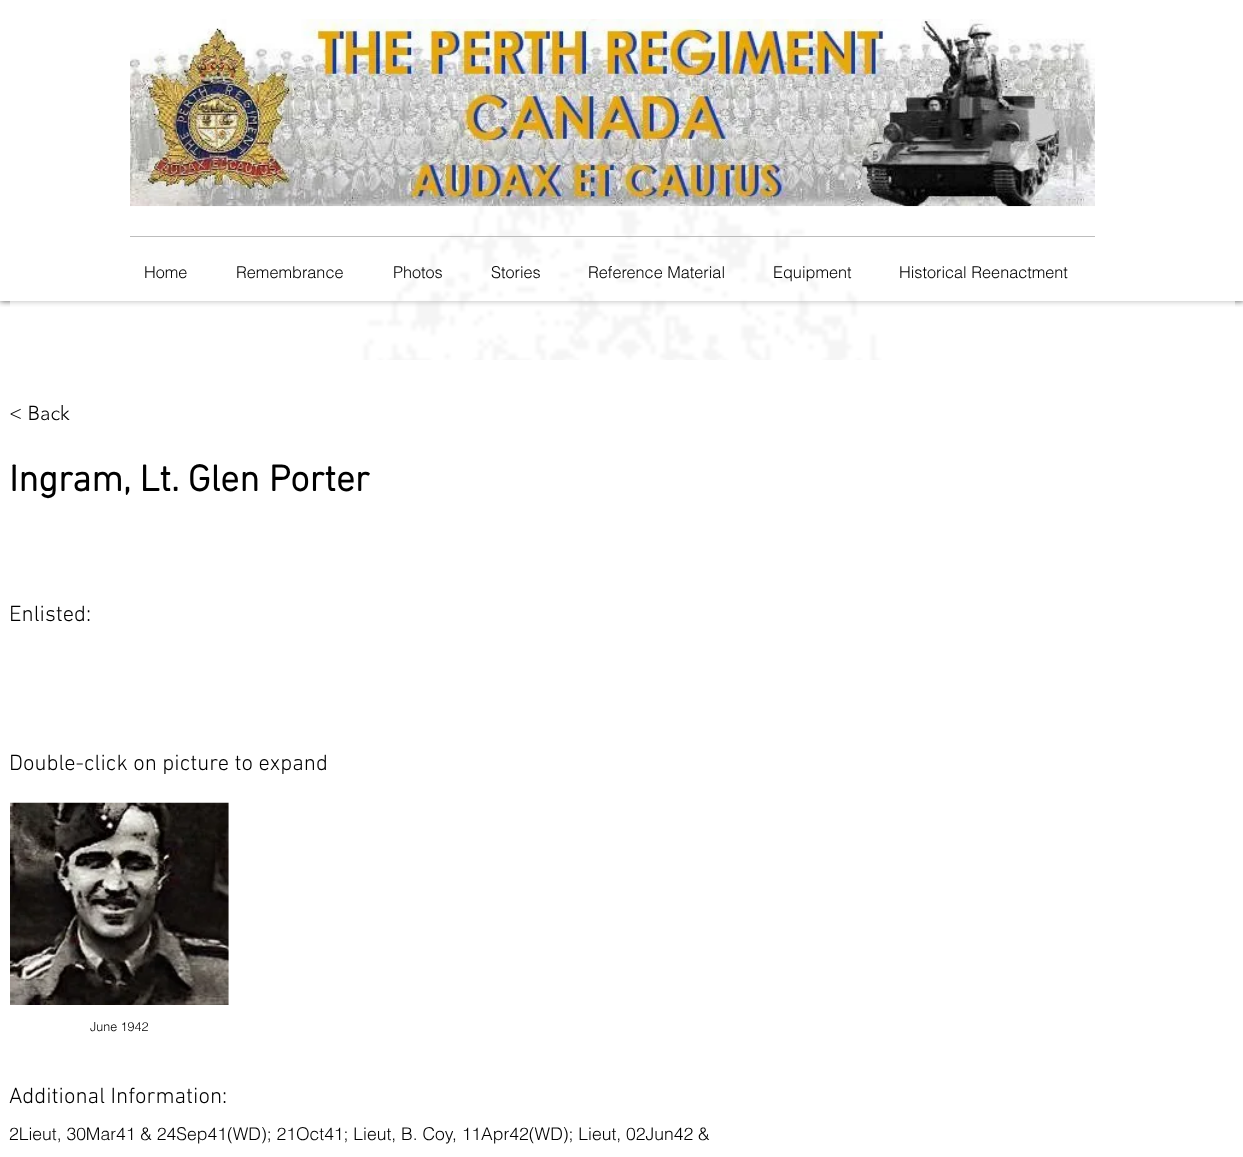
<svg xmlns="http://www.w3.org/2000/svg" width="1243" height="1157">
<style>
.a{font:300 16.25px helvetica;fill:#000}
.b{font:300 20px 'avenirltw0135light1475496';fill:#000}
.c{font:bold 37.5px 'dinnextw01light';fill:#000}
.d{font:300 22.5px 'dinnextw01light';fill:#000}
.e{font:300 12.5px helvetica;fill:#000}
.f{font:300 17.5px helvetica;fill:#000}
</style>
<defs>
<clipPath id="clip1"><path d="M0 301h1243v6H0z"/></clipPath>
</defs>
<rect width="100%" height="100%" fill="#fff"/>
<image href="1.png" x="51" y="37" width="1132" height="323"/>
<g clip-path="url(#clip1)">
<path fill="#000000b3" filter="blur(3px)" d="M0 0h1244v301H0z"/>
</g>
<path fill="#ffffff99" d="M393 37h465v264H393z"/>
<image href="2.png" x="130" y="19" width="965" height="188"/>
<path fill="#afafafd1" d="M130 236h965v1H130z"/>
<path fill="#ffffff99" d="M10 301h1225v59H10z"/>
<image href="3.png" x="10" y="802" width="219" height="203"/>
<text class="a" x="144" y="278">Home</text>
<text class="a" x="236" y="278">Remembrance</text>
<text class="a" x="393" y="278">Photos</text>
<text class="a" x="491" y="278">Stories</text>
<text class="a" x="588" y="278">Reference Material</text>
<text class="a" x="773" y="278">Equipment</text>
<text class="a" x="899" y="278">Historical Reenactment</text>
<text class="b" x="9" y="420">&lt; Back</text>
<text class="c" x="9" y="491">Ingram, Lt. Glen Porter</text>
<text class="d" x="9" y="621">Enlisted:</text>
<text class="d" x="9" y="770">Double-click on picture to expand</text>
<text class="e" x="90" y="1031">June 1942</text>
<text class="d" x="9" y="1103">Additional Information:</text>
<text class="f" x="9" y="1140">2Lieut, 30Mar41 &amp; 24Sep41(WD); 21Oct41; Lieut, B. Coy, 11Apr42(WD); Lieut, 02Jun42 &amp;</text>
</svg>
